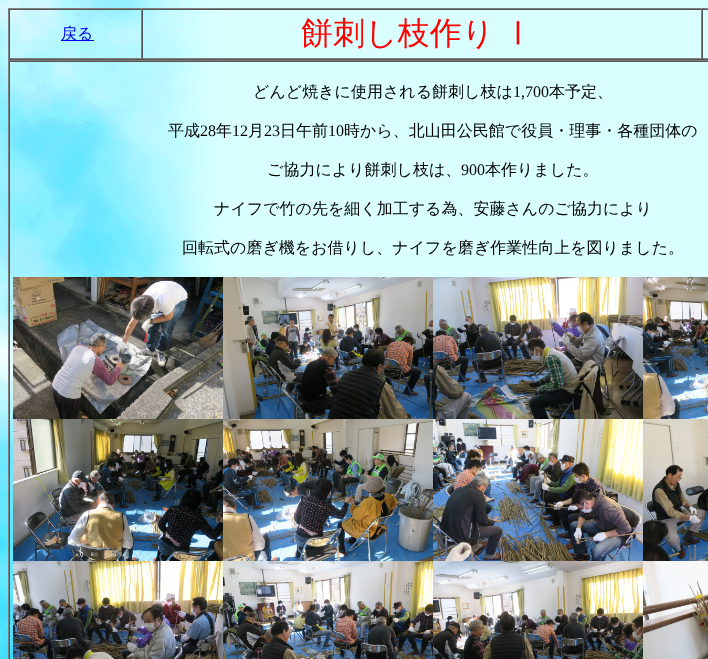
<svg xmlns="http://www.w3.org/2000/svg" width="708" height="659">
<style>
.a{font:500 16px WenQuanYi Zen Hei;fill:#00e}
.b{font:500 32px WenQuanYi Zen Hei;fill:#f00}
.c{font:500 16px WenQuanYi Zen Hei;fill:#000}
.d{font:16px Liberation Serif;fill:#000}
</style>
<rect width="100%" height="100%" fill="#fff"/>
<image href="1.png" x="0" y="0" width="708" height="659"/>
<path fill="#808080" d="M8 8h700v1H8z"/>
<path fill="#555" d="M8 59h700v1H8z"/>
<path fill="#808080" d="M8 8h1v52H8z"/>
<path fill="#555" d="M9 9h699v1H9z"/>
<path fill="#808080" d="M141 9h1v50H141z"/>
<path fill="#808080" d="M9 58h133v1H9z"/>
<path fill="#555" d="M9 9h1v50H9z"/>
<path fill="#00e" d="M61 40h33v1H61z"/>
<path fill="#808080" d="M701 9h1v50H701z"/>
<path fill="#808080" d="M142 58h566v1H142z"/>
<path fill="#555" d="M142 9h1v50H142z"/>
<path fill="#555" d="M702 9h1v50H702z"/>
<path fill="#808080" d="M8 60h700v1H8z"/>
<path fill="#808080" d="M8 60h1v599H8z"/>
<path fill="#555" d="M9 61h699v1H9z"/>
<path fill="#555" d="M9 61h1v598H9z"/>
<image href="2.png" x="13" y="277" width="210" height="142"/>
<image href="3.png" x="223" y="277" width="210" height="142"/>
<image href="4.png" x="433" y="277" width="210" height="142"/>
<image href="5.png" x="643" y="277" width="65" height="142"/>
<image href="6.png" x="13" y="419" width="210" height="142"/>
<image href="7.png" x="223" y="419" width="210" height="142"/>
<image href="8.png" x="433" y="419" width="210" height="142"/>
<image href="9.png" x="643" y="419" width="65" height="142"/>
<image href="10.png" x="13" y="561" width="210" height="98"/>
<image href="11.png" x="223" y="561" width="210" height="98"/>
<image href="12.png" x="433" y="561" width="210" height="98"/>
<image href="13.png" x="643" y="561" width="65" height="98"/>
<text class="a" x="61" y="39">戻る</text>
<text class="b" x="301" y="44" word-spacing="-2">餅刺し枝作り Ⅰ</text>
<text class="c" x="253" y="97">どんど焼きに使用される餅刺し枝は</text>
<text class="d" x="513" y="97">1,700</text>
<text class="c" x="549" y="97">本予定、</text>
<text class="c" x="168" y="136">平成</text>
<text class="d" x="200" y="136">28</text>
<text class="c" x="216" y="136">年</text>
<text class="d" x="232" y="136">12</text>
<text class="c" x="248" y="136">月</text>
<text class="d" x="264" y="136">23</text>
<text class="c" x="280" y="136">日午前</text>
<text class="d" x="328" y="136">10</text>
<text class="c" x="344" y="136">時から、北山田公民館で役員・理事・各種団体の</text>
<text class="c" x="267" y="175">ご協力により餅刺し枝は、</text>
<text class="d" x="461" y="175">900</text>
<text class="c" x="485" y="175">本作りました。</text>
<text class="c" x="214" y="214">ナイフで竹の先を細く加工する為、安藤さんのご協力により</text>
<text class="c" x="182" y="253">回転式の磨ぎ機をお借りし、ナイフを磨ぎ作業性向上を図りました。</text>
</svg>
